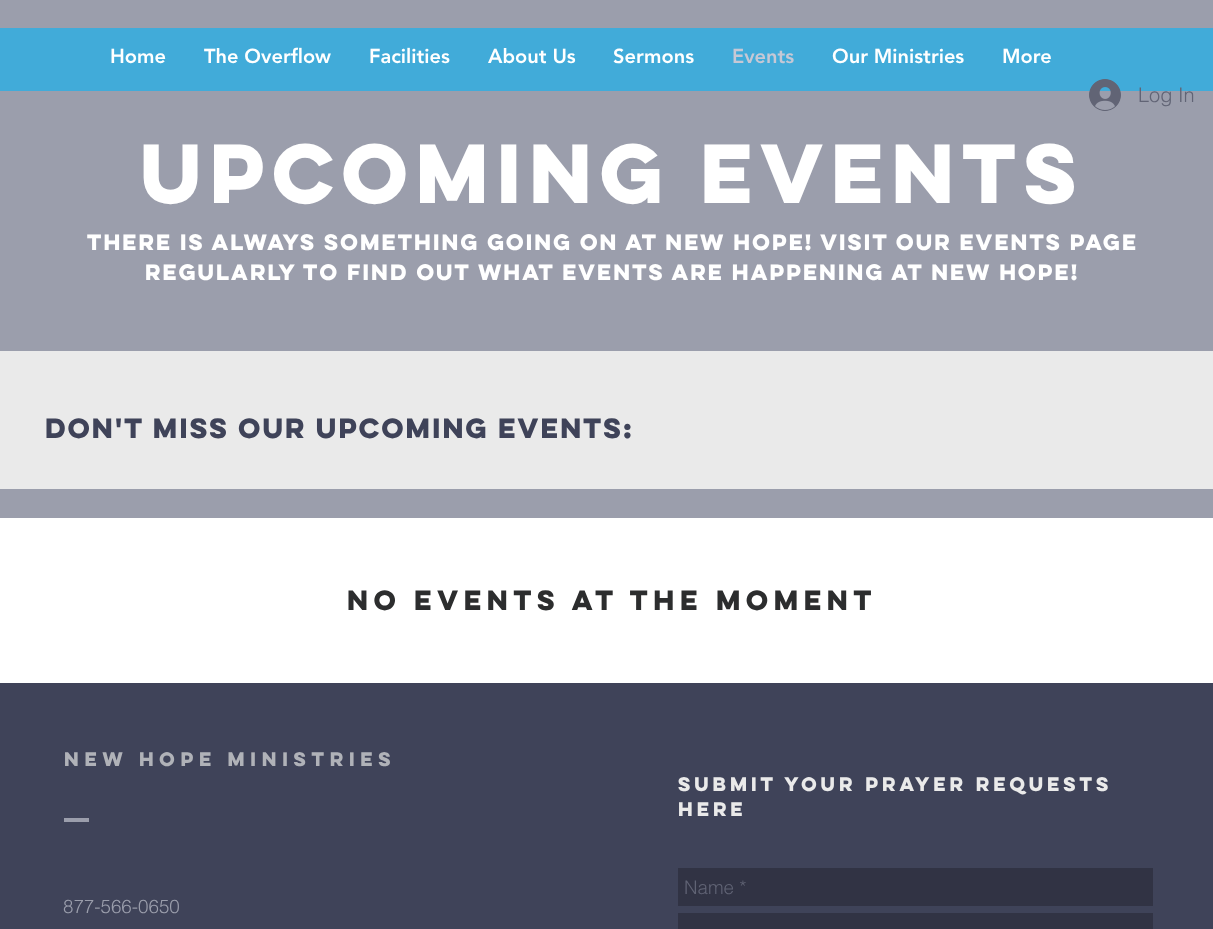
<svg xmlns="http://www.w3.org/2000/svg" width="1213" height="929">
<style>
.a{font:900 20px 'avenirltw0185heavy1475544';fill:#fff}
.b{font:900 20px 'avenirltw0185heavy1475544';fill:#c6c8d5}
.c{font:300 20px helvetica;fill:#616475}
.d{font:bold 75px 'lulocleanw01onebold';letter-spacing:-9px;fill:#fff}
.e{font:bold 20px 'lulocleanw01onebold';letter-spacing:-2.4px;fill:#fff}
.f{font:bold 25px 'lulocleanw01onebold';letter-spacing:-3.5px;fill:#3f4359}
.g{font:bold 25px 'lulocleanw01onebold';fill:#2c2d2e}
.h{font:bold 17.5px 'lulocleanw01onebold';letter-spacing:1.75px;fill:#b0b2b8}
.i{font:bold 17.5px 'lulocleanw01onebold';fill:#eaeaea}
.j{font:300 18.75px helvetica;fill:#616475}
.k{font:300 18.75px helvetica;fill:#9b9eac}
</style>
<rect width="100%" height="100%" fill="#9b9eac"/>
<path fill="#41abd9" d="M0 28h1213v63H0z"/>
<image href="1.png" x="1089" y="79" width="32" height="32"/>
<path fill="#eaeaea" d="M0 351h1213v138H0z"/>
<path fill="#fff" d="M0 518h1213v165H0z"/>
<path fill="#3f4359" d="M0 683h1213v246H0z"/>
<path fill="#9b9eac" d="M64 818h25v4H64z"/>
<path fill="#313344" d="M678 868h475v38H678z"/>
<path fill="#313344" d="M678 913h475v16H678z"/>
<text class="a" x="110" y="63">Home</text>
<text class="a" x="204" y="63">The Overflow</text>
<text class="a" x="369" y="63">Facilities</text>
<text class="a" x="488" y="63">About Us</text>
<text class="a" x="613" y="63">Sermons</text>
<text class="b" x="732" y="63">Events</text>
<text class="a" x="832" y="63">Our Ministries</text>
<text class="a" x="1002" y="63">More</text>
<text class="c" x="1138" y="102">Log In</text>
<text class="d" x="140" y="203">Upcoming events</text>
<text class="e" x="87" y="250">There is always something going on at New hope! Visit our Events Page</text>
<text class="e" x="145" y="280">regularly to find out what events are happening at new hope!</text>
<text class="f" x="45" y="438">Don't miss our UPcoming events:</text>
<text class="g" x="347" y="610">No events at the moment</text>
<text class="h" x="64" y="766">New Hope Ministries</text>
<text class="i" x="678" y="791">SUBMIT YOUR PRAYER REQUESTS</text>
<text class="i" x="678" y="816">HERE</text>
<text class="j" x="684" y="894">Name *</text>
<text class="k" x="63" y="913">877-566-0650</text>
</svg>
